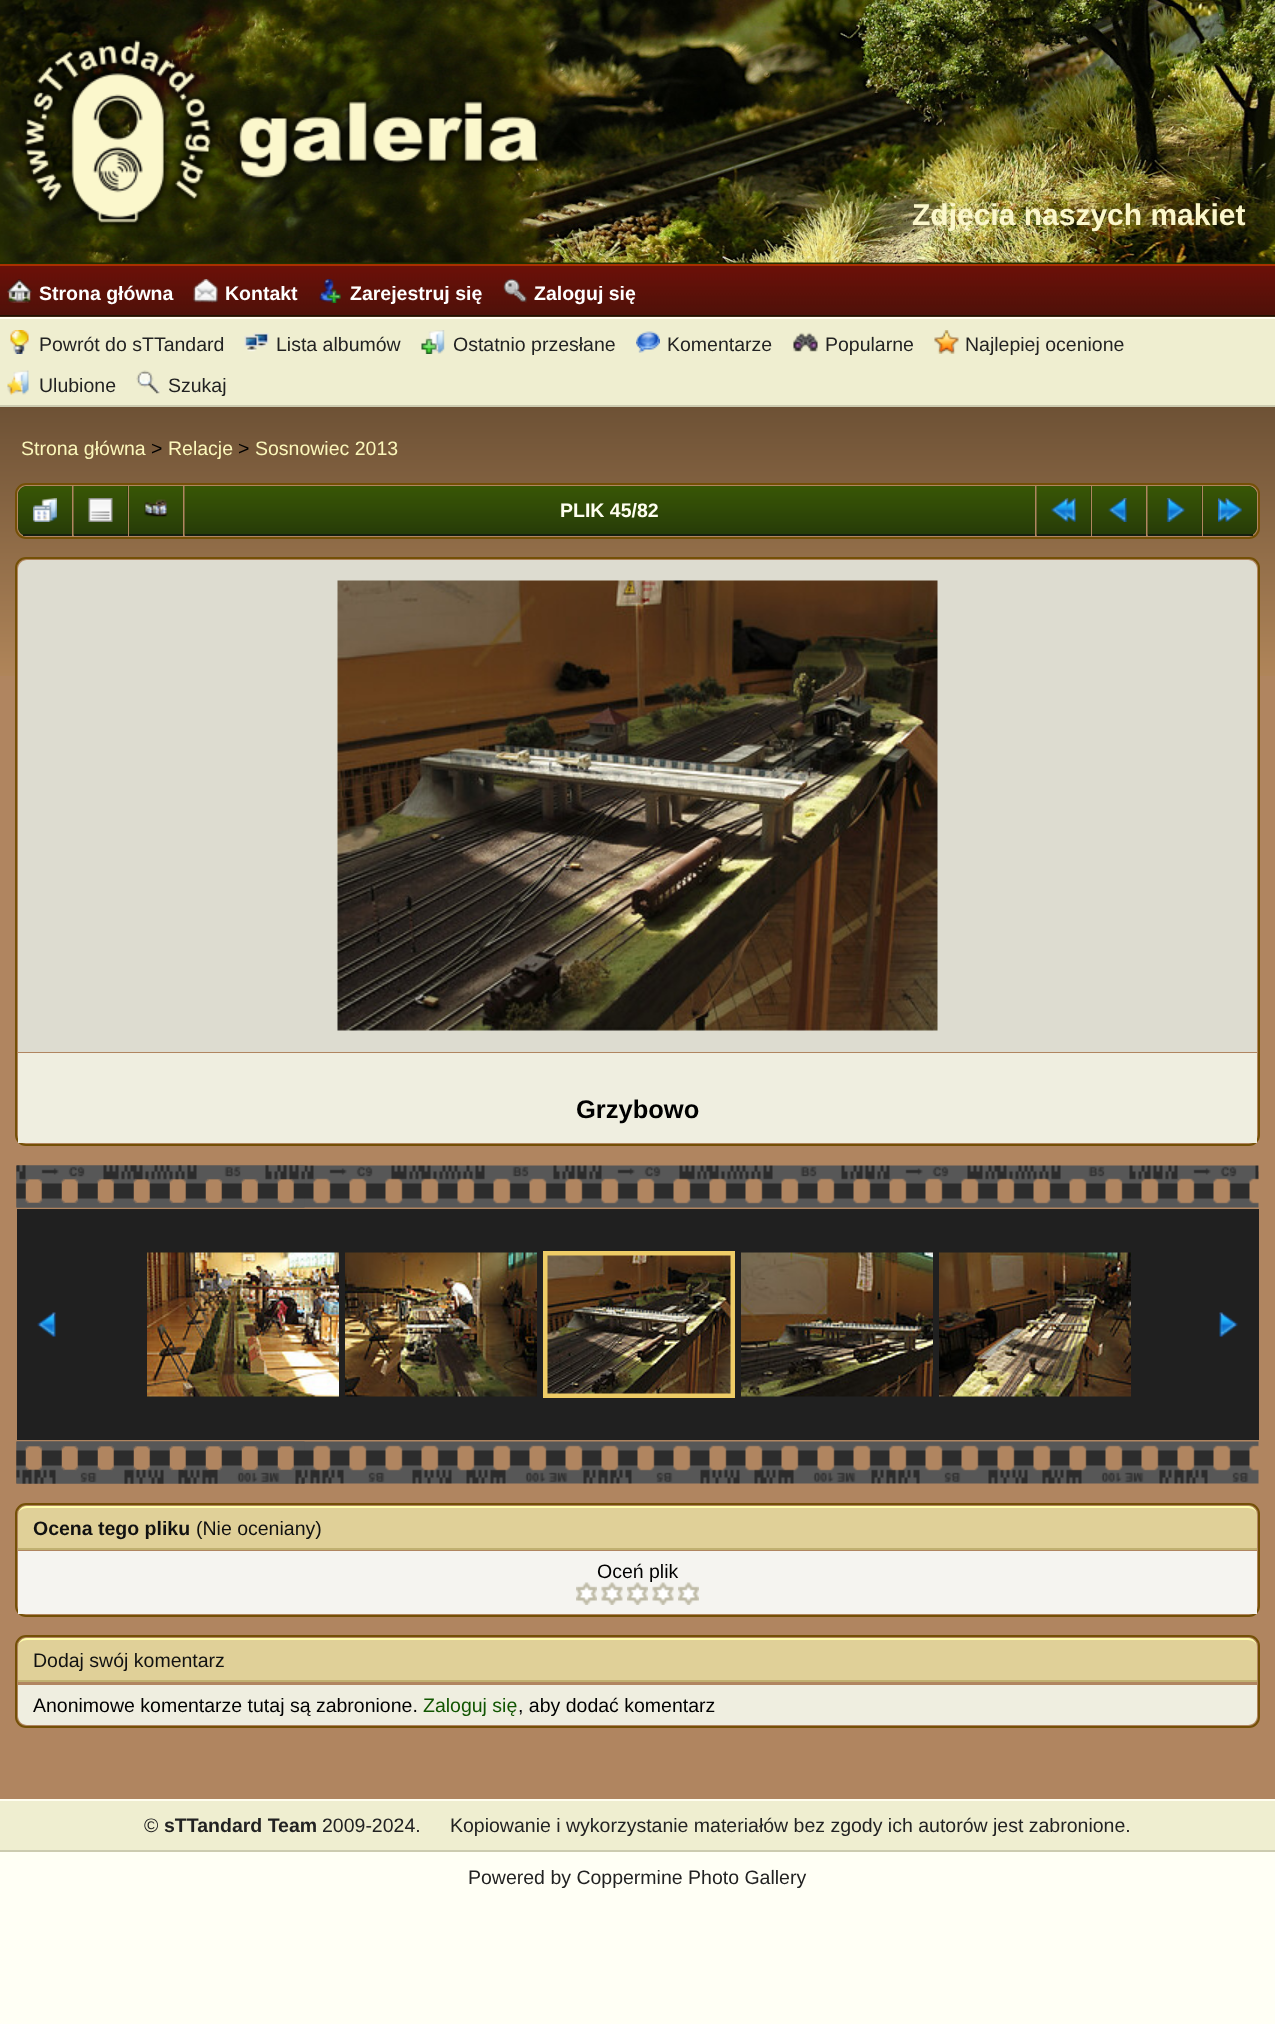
<svg xmlns="http://www.w3.org/2000/svg" width="1275" height="2024">
<style>
.a{font:bold 30px Liberation Sans;fill:#fbf7cc}
.b{font:bold 19.5px Liberation Sans;fill:#fff}
.c{font:19.5px Liberation Sans;fill:#222}
.d{font:19.5px Liberation Sans;fill:#fbf7bb}
.e{font:19.5px Liberation Sans;fill:#000}
.f{font:bold 19.5px Liberation Sans;fill:#fffef0}
.g{font:bold 25.5px Liberation Sans;fill:#000}
.h{font:bold 19.5px Liberation Sans;fill:#111}
.i{font:19.5px Liberation Sans;fill:#111}
.j{font:19.5px Liberation Sans;fill:#150}
.k{font:bold 19.5px Liberation Sans;fill:#222}
</style>
<rect width="100%" height="100%" fill="#fffff5"/>
<path fill="#202804" d="M0 262h1275v1H0z"/>
<image href="1.png" x="0" y="0" width="1275" height="263"/>
<path fill="#223000" d="M0 263h1275v1H0z"/>
<image href="2.png" x="20" y="37" width="524" height="193"/>
<image href="3.png" x="0" y="266" width="1275" height="49"/>
<path fill="#aa3000" d="M0 264h1275v2H0z"/>
<path fill="#221000" d="M0 315h1275v2H0z"/>
<image href="4.png" x="7" y="279" width="25" height="24"/>
<image href="5.png" x="193" y="279" width="25" height="24"/>
<image href="6.png" x="319" y="279" width="22" height="24"/>
<image href="7.png" x="503" y="279" width="24" height="24"/>
<path fill="#b08560" d="M0 676h1275v1123H0z"/>
<image href="8.png" x="0" y="316" width="1275" height="360"/>
<path fill="#efeed0" d="M0 319h1275v86H0z"/>
<path fill="#fffef0" d="M0 317h1275v2H0z"/>
<path fill="#cccbb0" d="M0 405h1275v2H0z"/>
<image href="9.png" x="10" y="330" width="19" height="24"/>
<image href="10.png" x="244" y="333" width="25" height="19"/>
<image href="11.png" x="421" y="330" width="24" height="24"/>
<image href="12.png" x="636" y="331" width="24" height="22"/>
<image href="13.png" x="793" y="332" width="25" height="20"/>
<image href="14.png" x="934" y="330" width="25" height="24"/>
<image href="15.png" x="7" y="370" width="22" height="25"/>
<image href="16.png" x="136" y="370" width="24" height="24"/>
<rect fill="#b08560" stroke="#745006" stroke-width="2" x="16" y="484" width="1243" height="54" rx="10"/>
<path fill="#233509" d="M27 486h45v50h-45c-5 0-9-4-9-9v-32c0-5 4-9 9-9z"/>
<image href="17.png" x="18" y="486" width="54" height="49"/>
<path fill="#152010" d="M23 534h49v2H23z"/>
<image href="18.png" x="33" y="498" width="24" height="24"/>
<path fill="#233509" d="M127 486h1v48H127z"/>
<image href="19.png" x="73" y="486" width="55" height="50"/>
<path fill="#152010" d="M74 534h54v2H74z"/>
<image href="20.png" x="88" y="498" width="25" height="24"/>
<image href="21.png" x="129" y="486" width="54" height="48"/>
<path fill="#152010" d="M129 534h54v2H129z"/>
<image href="22.png" x="144" y="499" width="24" height="18"/>
<image href="23.png" x="184" y="486" width="851" height="50"/>
<path fill="#152010" d="M185 534h850v2H185z"/>
<path fill="#233509" d="M1090 486h1v48H1090z"/>
<image href="24.png" x="1036" y="486" width="55" height="50"/>
<path fill="#152010" d="M1037 534h54v2H1037z"/>
<image href="25.png" x="1051" y="498" width="25" height="24"/>
<image href="26.png" x="1092" y="486" width="54" height="48"/>
<path fill="#152010" d="M1092 534h54v2H1092z"/>
<image href="27.png" x="1108" y="498" width="19" height="24"/>
<path fill="#233509" d="M1201 486h1v48H1201z"/>
<image href="28.png" x="1147" y="486" width="55" height="50"/>
<path fill="#152010" d="M1148 534h54v2H1148z"/>
<image href="29.png" x="1166" y="498" width="20" height="24"/>
<path fill="#233509" d="M1203 486h45c5 0 9 4 9 9v32c0 5-4 9-9 9h-45z"/>
<image href="30.png" x="1203" y="486" width="54" height="48"/>
<path fill="#152010" d="M1203 534h50v2H1203z"/>
<image href="31.png" x="1218" y="498" width="24" height="24"/>
<rect fill="#b08560" stroke="#745006" stroke-width="2" x="16" y="558" width="1243" height="587" rx="10"/>
<path fill="#dddcd0" d="M27 560h1221c5 0 9 4 9 9v483h-1239v-483c0-5 4-9 9-9z"/>
<image href="32.png" x="337" y="580" width="601" height="451"/>
<path fill="#efeee0" d="M18 1053h1239v90H18z"/>
<image href="33.png" x="16" y="1165" width="1243" height="43"/>
<image href="34.png" x="16" y="1165" width="289" height="43"/>
<path fill="#202020" d="M17 1209h1242v231H17z"/>
<image href="35.png" x="37" y="1312" width="19" height="25"/>
<image href="36.png" x="147" y="1252" width="192" height="145"/>
<image href="37.png" x="345" y="1252" width="192" height="145"/>
<path fill="none" stroke="#ec6" stroke-width="5" d="M545.5 1253.5h187v142H545.5z"/>
<image href="38.png" x="547" y="1255" width="184" height="139"/>
<image href="39.png" x="741" y="1252" width="192" height="145"/>
<image href="40.png" x="939" y="1252" width="192" height="145"/>
<image href="41.png" x="1219" y="1312" width="19" height="25"/>
<image href="42.png" x="16" y="1441" width="1243" height="43"/>
<image href="43.png" x="16" y="1441" width="289" height="43"/>
<rect fill="none" stroke="#745006" stroke-width="2" x="16" y="1504" width="1243" height="112" rx="10"/>
<path fill="#e0d098" d="M27 1506h1221c5 0 9 4 9 9v35h-1239v-35c0-5 4-9 9-9z"/>
<path fill="#fefeac" d="M27 1506c-5 0-9 4-9 9c0-4 4-7 9-7h1221c5 0 9 3 9 7c0-5-4-9-9-9z"/>
<path fill="#c0b071" d="M18 1548h1239v2H18z"/>
<path fill="#f5f4f0" d="M18 1551h1239v63H18z"/>
<image href="44.png" x="576" y="1582" width="21" height="23"/>
<rect fill="none" stroke="#745006" stroke-width="2" x="16" y="1636" width="1243" height="91" rx="10"/>
<path fill="#e0d098" d="M27 1638h1221c5 0 9 4 9 9v35h-1239v-35c0-5 4-9 9-9z"/>
<path fill="#fefeac" d="M27 1638c-5 0-9 4-9 9c0-4 4-7 9-7h1221c5 0 9 3 9 7c0-5-4-9-9-9z"/>
<path fill="#c0b071" d="M18 1680h1239v2H18z"/>
<path fill="#efeee0" d="M18 1685h1239v31c0 5-4 9-9 9h-1221c-5 0-9-4-9-9z"/>
<path fill="#efeed0" d="M0 1801h1275v49H0z"/>
<path fill="#fffef0" d="M0 1799h1275v2H0z"/>
<path fill="#cccbb0" d="M0 1850h1275v2H0z"/>
<text class="a" x="912" y="225">Zdjęcia naszych makiet</text>
<text class="b" x="39" y="300">Strona główna</text>
<text class="b" x="225" y="300">Kontakt</text>
<text class="b" x="350" y="300">Zarejestruj się</text>
<text class="b" x="534" y="300">Zaloguj się</text>
<text class="c" x="39" y="351">Powrót do sTTandard</text>
<text class="c" x="276" y="351">Lista albumów</text>
<text class="c" x="453" y="351">Ostatnio przesłane</text>
<text class="c" x="667" y="351">Komentarze</text>
<text class="c" x="825" y="351">Popularne</text>
<text class="c" x="965" y="351">Najlepiej ocenione</text>
<text class="c" x="39" y="392">Ulubione</text>
<text class="c" x="168" y="392">Szukaj</text>
<text class="d" x="21" y="455">Strona główna</text>
<text class="e" x="151" y="455">&gt;</text>
<text class="d" x="168" y="455">Relacje</text>
<text class="e" x="238" y="455">&gt;</text>
<text class="d" x="255" y="455">Sosnowiec 2013</text>
<text class="f" x="560" y="517">PLIK 45/82</text>
<text class="g" x="576" y="1118">Grzybowo</text>
<text class="h" x="33" y="1535">Ocena tego pliku</text>
<text class="i" x="196" y="1535">(Nie oceniany)</text>
<text class="e" x="597" y="1578">Oceń plik</text>
<image href="45.png" x="601" y="1582" width="22" height="23"/>
<image href="46.png" x="627" y="1582" width="21" height="23"/>
<image href="45.png" x="652" y="1582" width="22" height="23"/>
<image href="46.png" x="678" y="1582" width="21" height="23"/>
<text class="i" x="33" y="1667">Dodaj swój komentarz</text>
<text class="e" x="33" y="1712">Anonimowe komentarze tutaj są zabronione.</text>
<text class="j" x="423" y="1712">Zaloguj się</text>
<text class="e" x="518" y="1712">, aby dodać komentarz</text>
<text class="c" x="144" y="1832">©</text>
<text class="k" x="164" y="1832">sTTandard Team</text>
<text class="c" x="322" y="1832">2009-2024.</text>
<text class="c" x="450" y="1832">Kopiowanie i wykorzystanie materiałów bez zgody ich autorów jest zabronione.</text>
<text class="c" x="468" y="1884">Powered by Coppermine Photo Gallery</text>
</svg>
